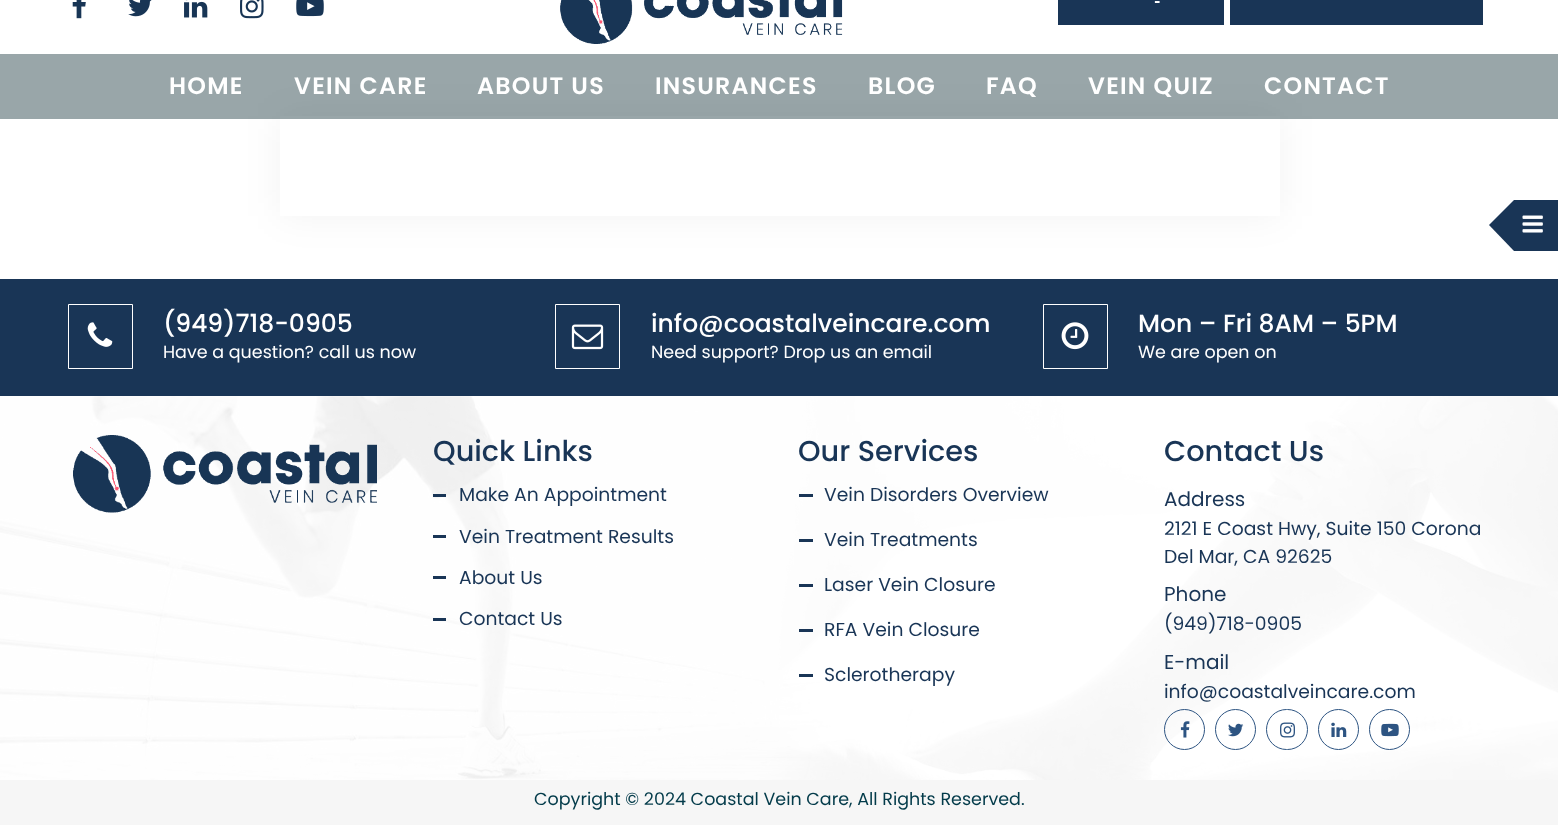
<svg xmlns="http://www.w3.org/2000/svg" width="1558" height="825">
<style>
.a{font:600 17.5px Saira;letter-spacing:1.25px;fill:#fff}
.b{font:600 23.75px Poppins;letter-spacing:1.25px;fill:#fff}
.c{font:500 25px Poppins;fill:#fff}
.d{font:17.5px Poppins;fill:#fff}
.e{font:500 28.75px Poppins;fill:#193556}
.f{font:18.75px Poppins;fill:#193556}
.g{font:20px Poppins;fill:#193556}
.h{font:17.5px Poppins;fill:#033b4a}
</style>
<rect width="100%" height="100%" fill="#fff"/>
<image href="1.png" x="72" y="0" width="14" height="19"/>
<image href="2.png" x="128" y="0" width="24" height="17"/>
<image href="3.png" x="184" y="0" width="24" height="18"/>
<image href="4.png" x="240" y="0" width="24" height="19"/>
<image href="5.png" x="296" y="0" width="28" height="17"/>
<image href="6.png" x="560" y="0" width="283" height="44"/>
<path fill="#193556" d="M1058 0h166v25H1058z"/>
<path fill="#193556" d="M1230 0h253v25H1230z"/>
<path fill="#0000000d" filter="blur(19px)" d="M280 116h1000v100H280z"/>
<path fill="#fff" d="M280 116h1000v100H280z"/>
<path fill="#00202866" d="M0 54h1558v65H0z"/>
<path fill="#193556" d="M1514 200h44v51H1514z"/>
<path fill="#193556" d="M1514 200v51l-25-26z"/>
<image href="7.png" x="1522" y="215" width="21" height="18"/>
<path fill="#193556" d="M0 279h1558v117H0z"/>
<path fill="none" stroke="#fff" d="M68.5 304.5h64v64H68.5z"/>
<image href="8.png" x="87" y="322" width="26" height="25"/>
<path fill="none" stroke="#fff" d="M555.5 304.5h64v64H555.5z"/>
<image href="9.png" x="571" y="324" width="33" height="26"/>
<path fill="none" stroke="#fff" d="M1043.5 304.5h64v64H1043.5z"/>
<image href="10.png" x="1061" y="322" width="28" height="28"/>
<image href="11.png" x="0" y="396" width="1558" height="384"/>
<image href="12.png" x="73" y="435" width="304" height="78"/>
<path fill="#193556" d="M433 494h13v3H433z"/>
<path fill="#193556" d="M433 535h13v3H433z"/>
<path fill="#193556" d="M433 576h13v3H433z"/>
<path fill="#193556" d="M433 618h13v3H433z"/>
<path fill="#193556" d="M799 494h14v3H799z"/>
<path fill="#193556" d="M799 539h14v3H799z"/>
<path fill="#193556" d="M799 584h14v3H799z"/>
<path fill="#193556" d="M799 629h14v3H799z"/>
<path fill="#193556" d="M799 674h14v3H799z"/>
<circle fill="none" stroke="#2d5482" cx="1184.5" cy="729.5" r="20"/>
<image href="13.png" x="1180" y="721" width="10" height="17"/>
<circle fill="none" stroke="#2d5482" cx="1235.5" cy="729.5" r="20"/>
<image href="14.png" x="1228" y="723" width="16" height="14"/>
<rect fill="none" stroke="#2d5482" x="1266.5" y="709.5" width="41" height="40" rx="20"/>
<image href="15.png" x="1280" y="722" width="15" height="16"/>
<circle fill="none" stroke="#2d5482" cx="1338.5" cy="729.5" r="20"/>
<image href="16.png" x="1331" y="722" width="16" height="15"/>
<circle fill="none" stroke="#2d5482" cx="1389.5" cy="729.5" r="20"/>
<image href="17.png" x="1381" y="723" width="18" height="14"/>
<path fill="#f6f6f6" d="M0 780h1558v45H0z"/>
<text class="a" x="1154" y="7">-</text>
<text class="b" x="169" y="94">HOME</text>
<text class="b" x="294" y="94">VEIN CARE</text>
<text class="b" x="477" y="94">ABOUT US</text>
<text class="b" x="655" y="94">INSURANCES</text>
<text class="b" x="868" y="94">BLOG</text>
<text class="b" x="986" y="94">FAQ</text>
<text class="b" x="1088" y="94">VEIN QUIZ</text>
<text class="b" x="1264" y="94">CONTACT</text>
<text class="c" x="163" y="332">(949)718-0905</text>
<text class="d" x="163" y="358">Have a question? call us now</text>
<text class="c" x="651" y="332">info@coastalveincare.com</text>
<text class="d" x="651" y="358">Need support? Drop us an email</text>
<text class="c" x="1138" y="332">Mon – Fri 8AM – 5PM</text>
<text class="d" x="1138" y="358">We are open on</text>
<text class="e" x="433" y="461">Quick Links</text>
<text class="f" x="459" y="501">Make An Appointment</text>
<text class="f" x="459" y="543">Vein Treatment Results</text>
<text class="f" x="459" y="584">About Us</text>
<text class="f" x="459" y="625">Contact Us</text>
<text class="e" x="798" y="461">Our Services</text>
<text class="f" x="824" y="501">Vein Disorders Overview</text>
<text class="f" x="824" y="546">Vein Treatments</text>
<text class="f" x="824" y="591">Laser Vein Closure</text>
<text class="f" x="824" y="636">RFA Vein Closure</text>
<text class="f" x="824" y="681">Sclerotherapy</text>
<text class="e" x="1164" y="461">Contact Us</text>
<text class="g" x="1164" y="506">Address</text>
<text class="f" x="1164" y="535">2121 E Coast Hwy, Suite 150 Corona</text>
<text class="f" x="1164" y="563">Del Mar, CA 92625</text>
<text class="g" x="1164" y="601">Phone</text>
<text class="f" x="1164" y="630">(949)718-0905</text>
<text class="g" x="1164" y="669">E-mail</text>
<text class="f" x="1164" y="698">info@coastalveincare.com</text>
<text class="h" x="534" y="805">Copyright © 2024 Coastal Vein Care, All Rights Reserved.</text>
</svg>
